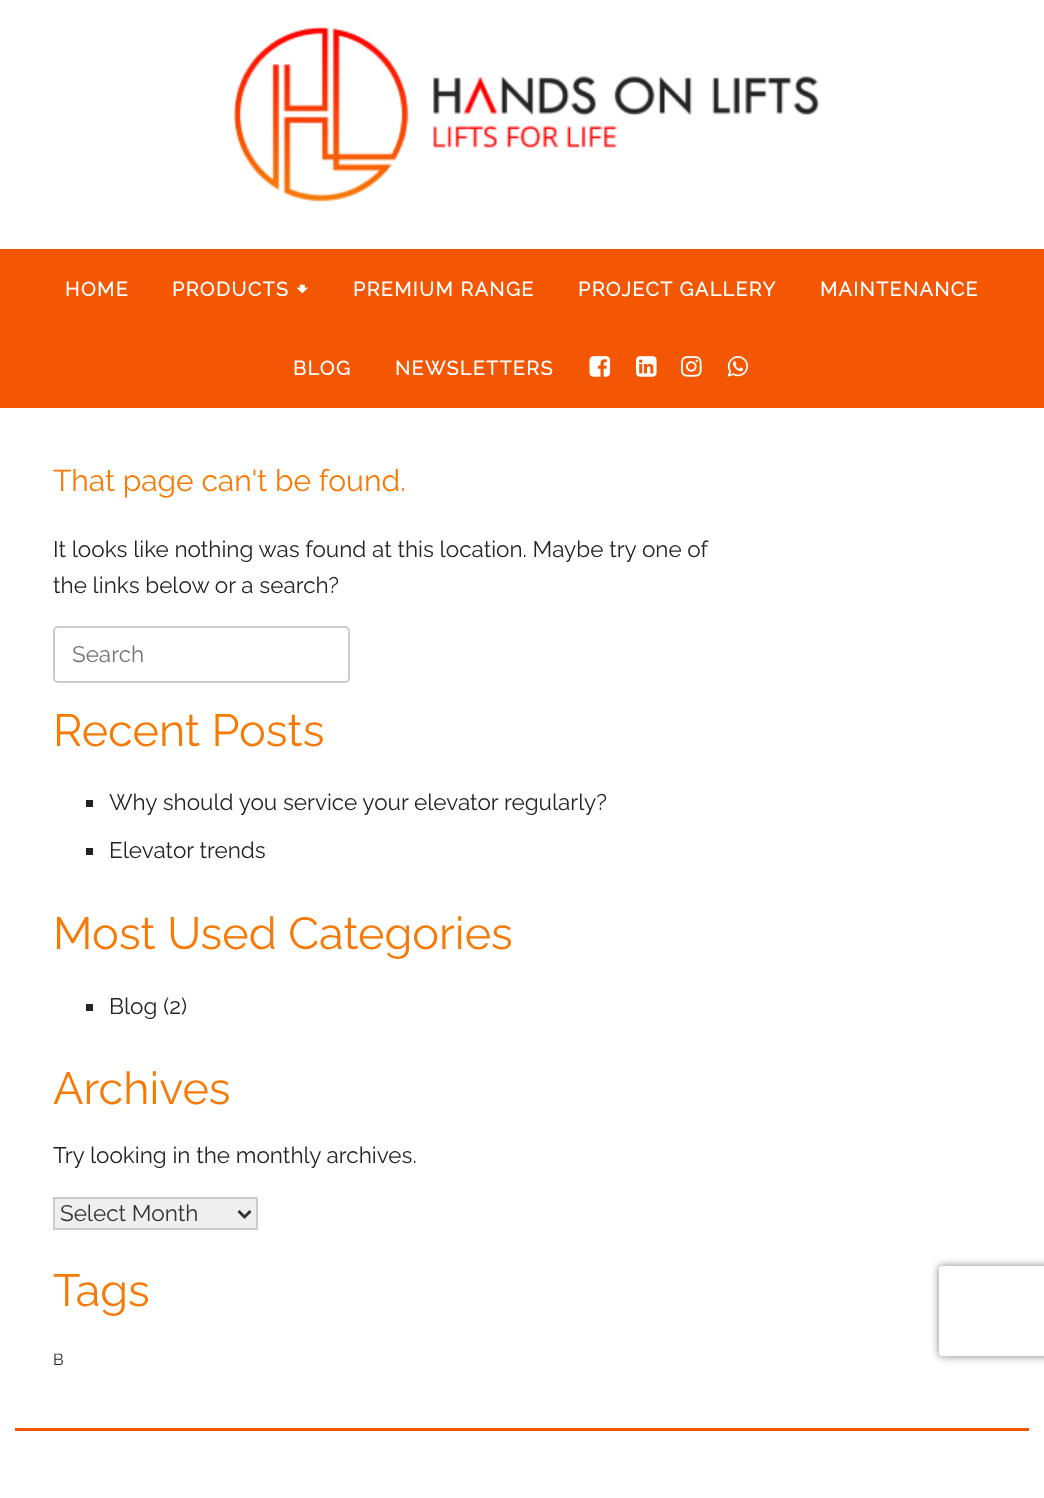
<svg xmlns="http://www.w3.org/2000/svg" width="1044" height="1498">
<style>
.a{font:bold 19.5px Raleway;letter-spacing:1.5px;fill:#fff}
.b{font:bold 19.5px 'Noto Sans Symbols 2';letter-spacing:1.5px;fill:#fff}
.c{font:100 30px Raleway;fill:#f77a06}
.d{font:100 22.5px Raleway;fill:#242424}
.e{font:100 22.5px Raleway;fill:#757575}
.f{font:100 45px Raleway;fill:#f77a06}
.g{font:100 22.5px Raleway;fill:#333}
.h{font:100 16px Raleway;fill:#242424}
</style>
<defs>
<clipPath id="clip1"><path d="M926 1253h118v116h-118zm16 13h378c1.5 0 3 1.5 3 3v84c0 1.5-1.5 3-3 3h-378c-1.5 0-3-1.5-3-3v-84c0-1.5 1.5-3 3-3z" clip-rule="evenodd"/></clipPath>
</defs>
<rect width="100%" height="100%" fill="#fff"/>
<image href="1.png" x="233" y="26" width="587" height="176"/>
<path fill="#f45704" d="M0 249h1044v159H0z"/>
<image href="2.png" x="589" y="356" width="22" height="21"/>
<image href="3.png" x="636" y="356" width="21" height="21"/>
<image href="4.png" x="681" y="356" width="21" height="21"/>
<image href="5.png" x="727" y="356" width="22" height="21"/>
<rect fill="none" stroke="#ccc" stroke-width="2" x="54" y="627" width="295" height="55" rx="4"/>
<path fill="#242424" d="M86 800h7v7H86z"/>
<path fill="#242424" d="M86 848h7v7H86z"/>
<path fill="#242424" d="M86 1004h7v7H86z"/>
<path fill="#efefef" stroke="#ccc" stroke-width="2" d="M54 1198h203v31H54z"/>
<path fill="none" stroke="#333" stroke-width="3" d="M238.5 1211l6 6l6-6"/>
<path fill="#f45704" d="M15 1428h1014v3H15z"/>
<g clip-path="url(#clip1)">
<rect fill="#808080" filter="blur(4px)" x="939" y="1266" width="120" height="90" rx="3"/>
</g>
<text class="a" x="65" y="296">HOME</text>
<text class="a" x="172" y="296">PRODUCTS</text>
<text class="b" x="296" y="296">🠻</text>
<text class="a" x="353" y="296">PREMIUM RANGE</text>
<text class="a" x="578" y="296">PROJECT GALLERY</text>
<text class="a" x="820" y="296">MAINTENANCE</text>
<text class="a" x="293" y="375">BLOG</text>
<text class="a" x="395" y="375">NEWSLETTERS</text>
<text class="c" x="53" y="491">That page can't be found.</text>
<text class="d" x="53" y="557">It looks like nothing was found at this location. Maybe try one of</text>
<text class="d" x="53" y="593">the links below or a search?</text>
<text class="e" x="72" y="662">Search</text>
<text class="f" x="53" y="746">Recent Posts</text>
<text class="d" x="109" y="810">Why should you service your elevator regularly?</text>
<text class="d" x="109" y="858">Elevator trends</text>
<text class="f" x="53" y="949">Most Used Categories</text>
<text class="d" x="109" y="1014">Blog (2)</text>
<text class="f" x="53" y="1104">Archives</text>
<text class="d" x="53" y="1163">Try looking in the monthly archives.</text>
<text class="g" x="60" y="1221">Select Month</text>
<text class="f" x="53" y="1306">Tags</text>
<text class="h" x="53" y="1365">B</text>
</svg>
